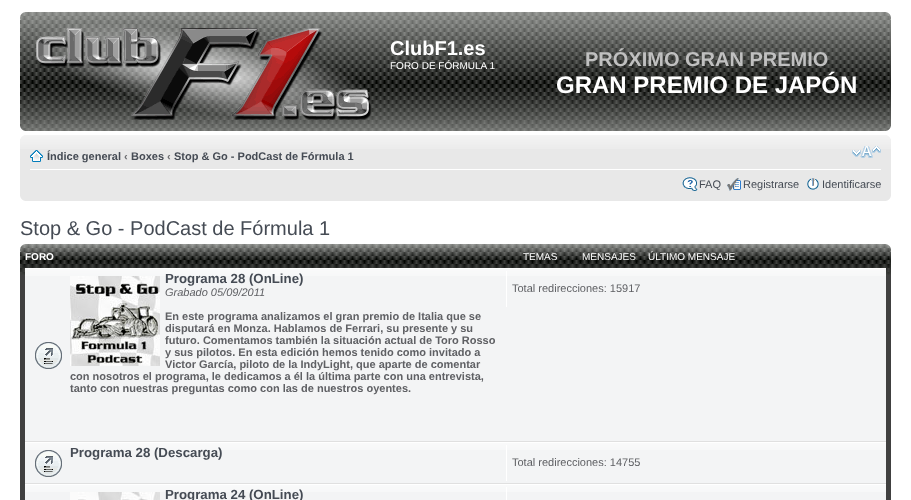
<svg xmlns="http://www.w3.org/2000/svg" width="911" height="500">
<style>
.a{font:bold 20px Liberation Sans;fill:#fff}
.b{font:10px Liberation Sans;fill:#fff}
.c{font:bold 20px Liberation Sans;fill:#c0c0c0}
.d{font:bold 24px Liberation Sans;fill:#fff}
.e{font:bold 11px Liberation Sans;fill:#454b54}
.f{font:bold 11px Liberation Sans;fill:#68696d}
.g{font:11px Liberation Sans;fill:#454b54}
.h{font:20px Liberation Sans;fill:#454b54}
.i{font:bold 10px Liberation Sans;fill:#fff}
.j{font:bold 13.25px Liberation Sans;fill:#454b54}
.k{font:italic 11px Liberation Sans;fill:#5f6064}
.l{font:bold 11px Liberation Sans;fill:#5f6064}
.m{font:11px Liberation Sans;fill:#5f6064}
</style>
<rect width="100%" height="100%" fill="#fff"/>
<image href="1.png" x="20" y="12" width="871" height="119"/>
<image href="2.png" x="20" y="12" width="5" height="8"/>
<image href="3.png" x="886" y="12" width="5" height="8"/>
<image href="4.png" x="33" y="24" width="339" height="96"/>
<image href="5.png" x="20" y="126" width="5" height="5"/>
<image href="6.png" x="886" y="126" width="5" height="5"/>
<path fill="#e8e8e8" d="M20 135h871v66H20z"/>
<image href="7.png" x="20" y="135" width="871" height="14"/>
<image href="8.png" x="20" y="135" width="4" height="4"/>
<image href="9.png" x="887" y="135" width="4" height="4"/>
<path fill="#fff" d="M30 169h851v1H30z"/>
<image href="10.png" x="30" y="150" width="13" height="12"/>
<image href="11.png" x="852" y="146" width="29" height="12"/>
<image href="12.png" x="682" y="177" width="16" height="14"/>
<image href="13.png" x="727" y="178" width="14" height="13"/>
<image href="14.png" x="807" y="178" width="12" height="12"/>
<image href="15.png" x="20" y="196" width="5" height="5"/>
<image href="16.png" x="886" y="196" width="5" height="5"/>
<path fill="#404040" d="M20 275h871v225H20z"/>
<image href="17.png" x="20" y="244" width="871" height="31"/>
<image href="18.png" x="20" y="244" width="5" height="8"/>
<image href="19.png" x="886" y="244" width="5" height="8"/>
<path fill="#f3f4f5" d="M25 269h861v172H25z"/>
<image href="20.png" x="25" y="269" width="861" height="7"/>
<path fill="#fff" d="M25 268h861v1H25z"/>
<path fill="#e0e0e0" d="M25 441h861v1H25z"/>
<image href="21.png" x="35" y="342" width="27" height="27"/>
<image href="22.png" x="70" y="276" width="90" height="90"/>
<path fill="#fff" d="M506 271h1v36H506z"/>
<path fill="#f3f4f5" d="M25 443h861v40H25z"/>
<image href="20.png" x="25" y="443" width="861" height="7"/>
<path fill="#fff" d="M25 442h861v1H25z"/>
<path fill="#e0e0e0" d="M25 483h861v1H25z"/>
<image href="21.png" x="35" y="450" width="27" height="27"/>
<path fill="#fff" d="M506 445h1v36H506z"/>
<path fill="#f3f4f5" d="M25 485h861v15H25z"/>
<image href="20.png" x="25" y="485" width="861" height="7"/>
<path fill="#fff" d="M25 484h861v1H25z"/>
<image href="23.png" x="70" y="492" width="90" height="8"/>
<path fill="#fff" d="M506 487h1v13H506z"/>
<text class="a" x="390" y="55">ClubF1.es</text>
<text class="b" x="390" y="69">FORO DE FÓRMULA 1</text>
<text class="c" x="585" y="66">PRÓXIMO GRAN PREMIO</text>
<text class="d" x="556" y="93">GRAN PREMIO DE JAPÓN</text>
<text class="e" x="47" y="160">Índice general</text>
<text class="f" x="124" y="160">‹</text>
<text class="e" x="131" y="160">Boxes</text>
<text class="f" x="167" y="160">‹</text>
<text class="e" x="174" y="160">Stop &amp; Go - PodCast de Fórmula 1</text>
<text class="g" x="699" y="188">FAQ</text>
<text class="g" x="743" y="188">Registrarse</text>
<text class="g" x="822" y="188">Identificarse</text>
<text class="h" x="20" y="235">Stop &amp; Go - PodCast de Fórmula 1</text>
<text class="i" x="25" y="260">FORO</text>
<text class="b" x="523" y="260">TEMAS</text>
<text class="b" x="582" y="260">MENSAJES</text>
<text class="b" x="648" y="260">ÚLTIMO MENSAJE</text>
<text class="j" x="165" y="283">Programa 28 (OnLine)</text>
<text class="k" x="165" y="296">Grabado 05/09/2011</text>
<text class="l" x="165" y="320">En este programa analizamos el gran premio de Italia que se</text>
<text class="l" x="165" y="332">disputará en Monza. Hablamos de Ferrari, su presente y su</text>
<text class="l" x="165" y="344">futuro. Comentamos también la situación actual de Toro Rosso</text>
<text class="l" x="165" y="356">y sus pilotos. En esta edición hemos tenido como invitado a</text>
<text class="l" x="165" y="368">Victor García, piloto de la IndyLight, que aparte de comentar</text>
<text class="l" x="70" y="380">con nosotros el programa, le dedicamos a él la última parte con una entrevista,</text>
<text class="l" x="70" y="392">tanto con nuestras preguntas como con las de nuestros oyentes.</text>
<text class="m" x="512" y="292">Total redirecciones: 15917</text>
<text class="j" x="70" y="457">Programa 28 (Descarga)</text>
<text class="m" x="512" y="466">Total redirecciones: 14755</text>
<text class="j" x="165" y="499">Programa 24 (OnLine)</text>
</svg>
